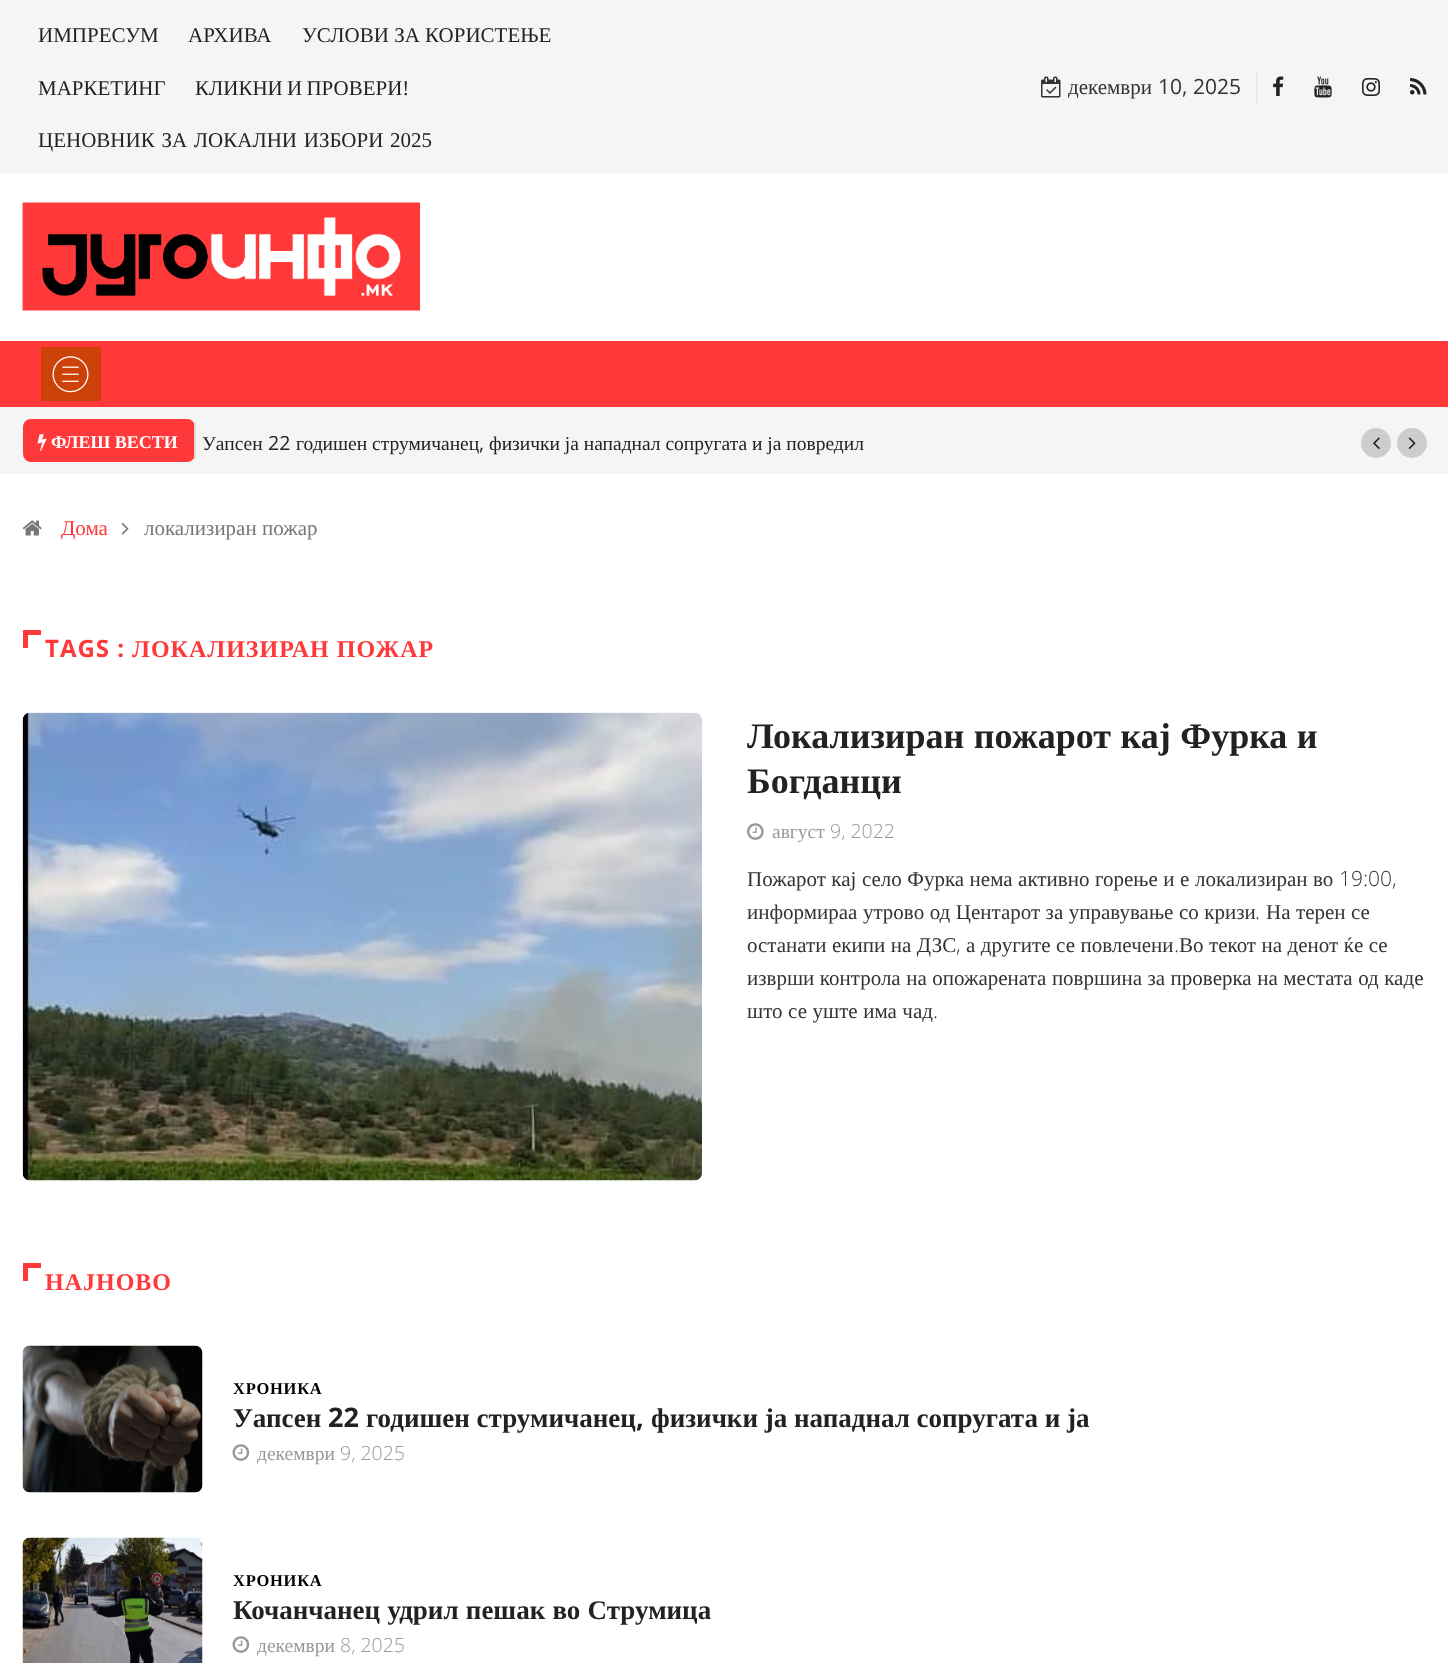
<svg xmlns="http://www.w3.org/2000/svg" width="1448" height="1663">
<style>
.a{font:21px Liberation Serif;fill:#222}
.b{font:21px Liberation Serif;fill:#333}
.c{font:21px Open Sans;fill:#333}
.d{font:bold 18px Liberation Serif;fill:#fff}
.e{font:19.5px Liberation Serif;fill:#222}
.f{font:19.5px Open Sans;fill:#222}
.g{font:21px Liberation Serif;fill:#ff3939}
.h{font:21px Liberation Serif;fill:#777}
.i{font:bold 24px Open Sans;letter-spacing:1px;fill:#ff3939}
.j{font:bold 24px Liberation Serif;letter-spacing:1px;fill:#ff3939}
.k{font:bold 36px Liberation Serif;fill:#222}
.l{font:19.5px Liberation Serif;fill:#999}
.m{font:300 19.5px Open Sans;fill:#999}
.n{font:300 21px Open Sans;fill:#333}
.o{font:bold 16.5px Liberation Serif;letter-spacing:0.75px;fill:#000}
.p{font:bold 27px Liberation Serif;fill:#222}
.q{font:bold 27px Open Sans;fill:#222}
</style>
<rect width="100%" height="100%" fill="#fff"/>
<path fill="#f5f5f5" d="M0 0h1448v173H0z"/>
<path fill="#eaeaea" d="M1256 71h2v33H1256z"/>
<image href="1.png" x="1041" y="76" width="20" height="22"/>
<image href="2.png" x="1273" y="76" width="11" height="20"/>
<image href="3.png" x="1314" y="76" width="18" height="22"/>
<image href="4.png" x="1362" y="78" width="18" height="18"/>
<image href="5.png" x="1410" y="78" width="17" height="17"/>
<image href="6.png" x="22" y="202" width="398" height="109"/>
<path fill="#ff3939" d="M0 341h1448v66H0z"/>
<path fill="#cc4209" d="M41 347h60v54H41z"/>
<image href="7.png" x="52" y="356" width="37" height="37"/>
<path fill="#f5f5f5" d="M0 407h1448v67H0z"/>
<rect fill="#ff3939" x="23" y="419" width="172" height="43" rx="8"/>
<path fill="#dedbdb" d="M194 423h2v36H194z"/>
<image href="8.png" x="37" y="434" width="10" height="17"/>
<circle fill="#cdcdcd" cx="1376" cy="443" r="15"/>
<image href="9.png" x="1373" y="437" width="7" height="12"/>
<circle fill="#cdcdcd" cx="1412" cy="443" r="15"/>
<image href="10.png" x="1408" y="437" width="8" height="12"/>
<image href="11.png" x="22" y="520" width="20" height="16"/>
<image href="12.png" x="121" y="523" width="8" height="12"/>
<path fill="#ff3939" d="M23 630h5v18H23z"/>
<path fill="#ff3939" d="M23 630h18v5H23z"/>
<image href="13.png" x="22" y="712" width="680" height="469"/>
<image href="14.png" x="747" y="823" width="17" height="17"/>
<path fill="#ff3939" d="M23 1263h5v18H23z"/>
<path fill="#ff3939" d="M23 1263h18v5H23z"/>
<image href="15.png" x="22" y="1345" width="181" height="148"/>
<image href="16.png" x="232" y="1444" width="18" height="17"/>
<image href="17.png" x="22" y="1537" width="181" height="126"/>
<image href="16.png" x="232" y="1636" width="18" height="17"/>
<text class="a" x="38" y="42">ИМПРЕСУМ</text>
<text class="a" x="188" y="42">АРХИВА</text>
<text class="a" x="302" y="42">УСЛОВИ ЗА КОРИСТЕЊЕ</text>
<text class="a" x="38" y="95">МАРКЕТИНГ</text>
<text class="a" x="195" y="95" word-spacing="-1">КЛИКНИ И ПРОВЕРИ!</text>
<text class="a" x="38" y="147" word-spacing="1.5">ЦЕНОВНИК ЗА ЛОКАЛНИ ИЗБОРИ 2025</text>
<text class="b" x="1068" y="94">декември</text>
<text class="c" x="1158" y="94">10, 2025</text>
<text class="d" x="51" y="448">ФЛЕШ ВЕСТИ</text>
<text class="e" x="202" y="450">Уапсен</text>
<text class="f" x="268" y="450">22</text>
<text class="e" x="296" y="450">годишен струмичанец</text>
<text class="f" x="479" y="450">,</text>
<text class="e" x="489" y="450">физички ја нападнал сопругата и ја повредил</text>
<text class="g" x="61" y="535">Дома</text>
<text class="h" x="144" y="535">локализиран пожар</text>
<text class="i" x="45" y="657">TAGS :</text>
<text class="j" x="132" y="657">ЛОКАЛИЗИРАН ПОЖАР</text>
<text class="k" x="747" y="748" word-spacing="0.5">Локализиран пожарот кај Фурка и</text>
<text class="k" x="747" y="793">Богданци</text>
<text class="l" x="772" y="838">август</text>
<text class="m" x="830" y="838">9, 2022</text>
<text class="b" x="747" y="886" word-spacing="0.25">Пожарот кај село Фурка нема активно горење и е локализиран во</text>
<text class="n" x="1339" y="886">19:00,</text>
<text class="b" x="747" y="919" word-spacing="0.25">информираа утрово од Центарот за управување со кризи</text>
<text class="n" x="1255" y="919">.</text>
<text class="b" x="1266" y="919" word-spacing="0.25">На терен се</text>
<text class="b" x="747" y="952" word-spacing="0.25">останати екипи на ДЗС</text>
<text class="n" x="956" y="952">,</text>
<text class="b" x="966" y="952" word-spacing="0.25">а другите се повлечени Во текот на денот ќе се</text>
<text class="n" x="1174" y="952">.</text>
<text class="b" x="747" y="985" word-spacing="0.25">изврши контрола на опожарената површина за проверка на местата од каде</text>
<text class="b" x="747" y="1018" word-spacing="0.25">што се уште има чад</text>
<text class="n" x="933" y="1018">.</text>
<text class="j" x="45" y="1290">НАЈНОВО</text>
<text class="o" x="233" y="1394">ХРОНИКА</text>
<text class="p" x="233" y="1427">Уапсен</text>
<text class="q" x="328" y="1427">22</text>
<text class="p" x="366" y="1427">годишен струмичанец</text>
<text class="q" x="636" y="1427">,</text>
<text class="p" x="651" y="1427">физички ја нападнал сопругата и ја</text>
<text class="l" x="257" y="1460">декември</text>
<text class="m" x="340" y="1460">9, 2025</text>
<text class="o" x="233" y="1586">ХРОНИКА</text>
<text class="p" x="233" y="1619" word-spacing="0.5">Кочанчанец удрил пешак во Струмица</text>
<text class="l" x="257" y="1652">декември</text>
<text class="m" x="340" y="1652">8, 2025</text>
</svg>
